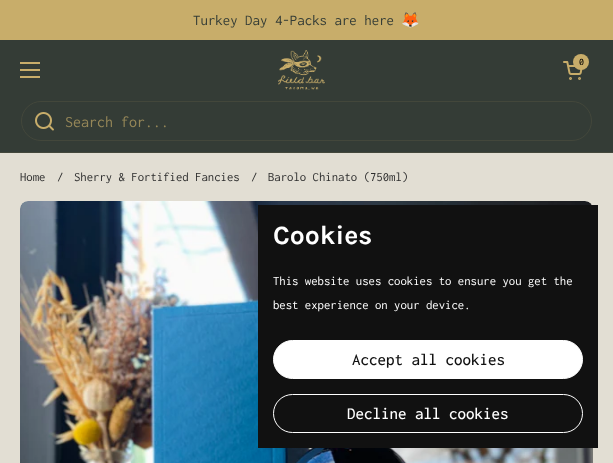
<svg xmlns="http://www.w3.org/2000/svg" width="613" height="463">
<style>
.a{font:14.9px Inconsolata;fill:#343c36}
.b{font:14.9px Noto Color Emoji;fill:#343c36}
.c{font:500 10px Inconsolata;fill:#000}
.d{font:16px Inconsolata;fill:#968758}
.e{font:12.75px Inconsolata;fill:#2d2d2d}
.f{font:bold 26.5px Karla;fill:#fff}
.g{font:12.75px Inconsolata;fill:#fff}
.h{font:500 17px Inconsolata;fill:#111}
.i{font:500 17px Inconsolata;fill:#fff}
</style>
<rect width="100%" height="100%" fill="#e2ded3"/>
<path fill="#c8ad6a" d="M0 0h613v40H0z"/>
<path fill="#343c36" d="M0 40h613v112H0z"/>
<path fill="#c8ad6a" d="M20 62h20v2H20z"/>
<path fill="#c8ad6a" d="M20 69h20v2H20z"/>
<path fill="#c8ad6a" d="M20 76h20v2H20z"/>
<image href="1.png" x="278" y="50" width="47" height="40"/>
<image href="2.png" x="563" y="61" width="20" height="19"/>
<circle fill="#c8ad6a" cx="581" cy="62" r="8"/>
<path fill="#43473b" d="M0 152h613v1H0z"/>
<rect fill="none" stroke="#43473b" x="21.5" y="101.5" width="570" height="39" rx="19.5"/>
<image href="3.png" x="35" y="112" width="19" height="19"/>
<image href="4.png" x="20" y="201" width="573" height="262"/>
<path fill="#111" d="M258 205h340v243H258z"/>
<rect fill="#fff" stroke="#fff" x="273.5" y="340.5" width="309" height="38" rx="19"/>
<rect fill="none" stroke="#fff" x="273.5" y="394.5" width="309" height="38" rx="19"/>
<text class="a" x="193" y="25">Turkey Day 4-Packs are here</text>
<text class="b" x="401" y="25">🦊</text>
<text class="c" x="579" y="65">0</text>
<text class="d" x="65" y="127">Search for...</text>
<text class="e" x="20" y="181">Home</text>
<text class="e" x="57" y="181">/</text>
<text class="e" x="74" y="181">Sherry &amp; Fortified Fancies</text>
<text class="e" x="251" y="181">/</text>
<text class="e" x="268" y="181">Barolo Chinato (750ml)</text>
<text class="f" x="273" y="244">Cookies</text>
<text class="g" x="273" y="285">This website uses cookies to ensure you get the</text>
<text class="g" x="273" y="309">best experience on your device.</text>
<text class="h" x="352" y="365">Accept all cookies</text>
<text class="i" x="347" y="419">Decline all cookies</text>
</svg>
